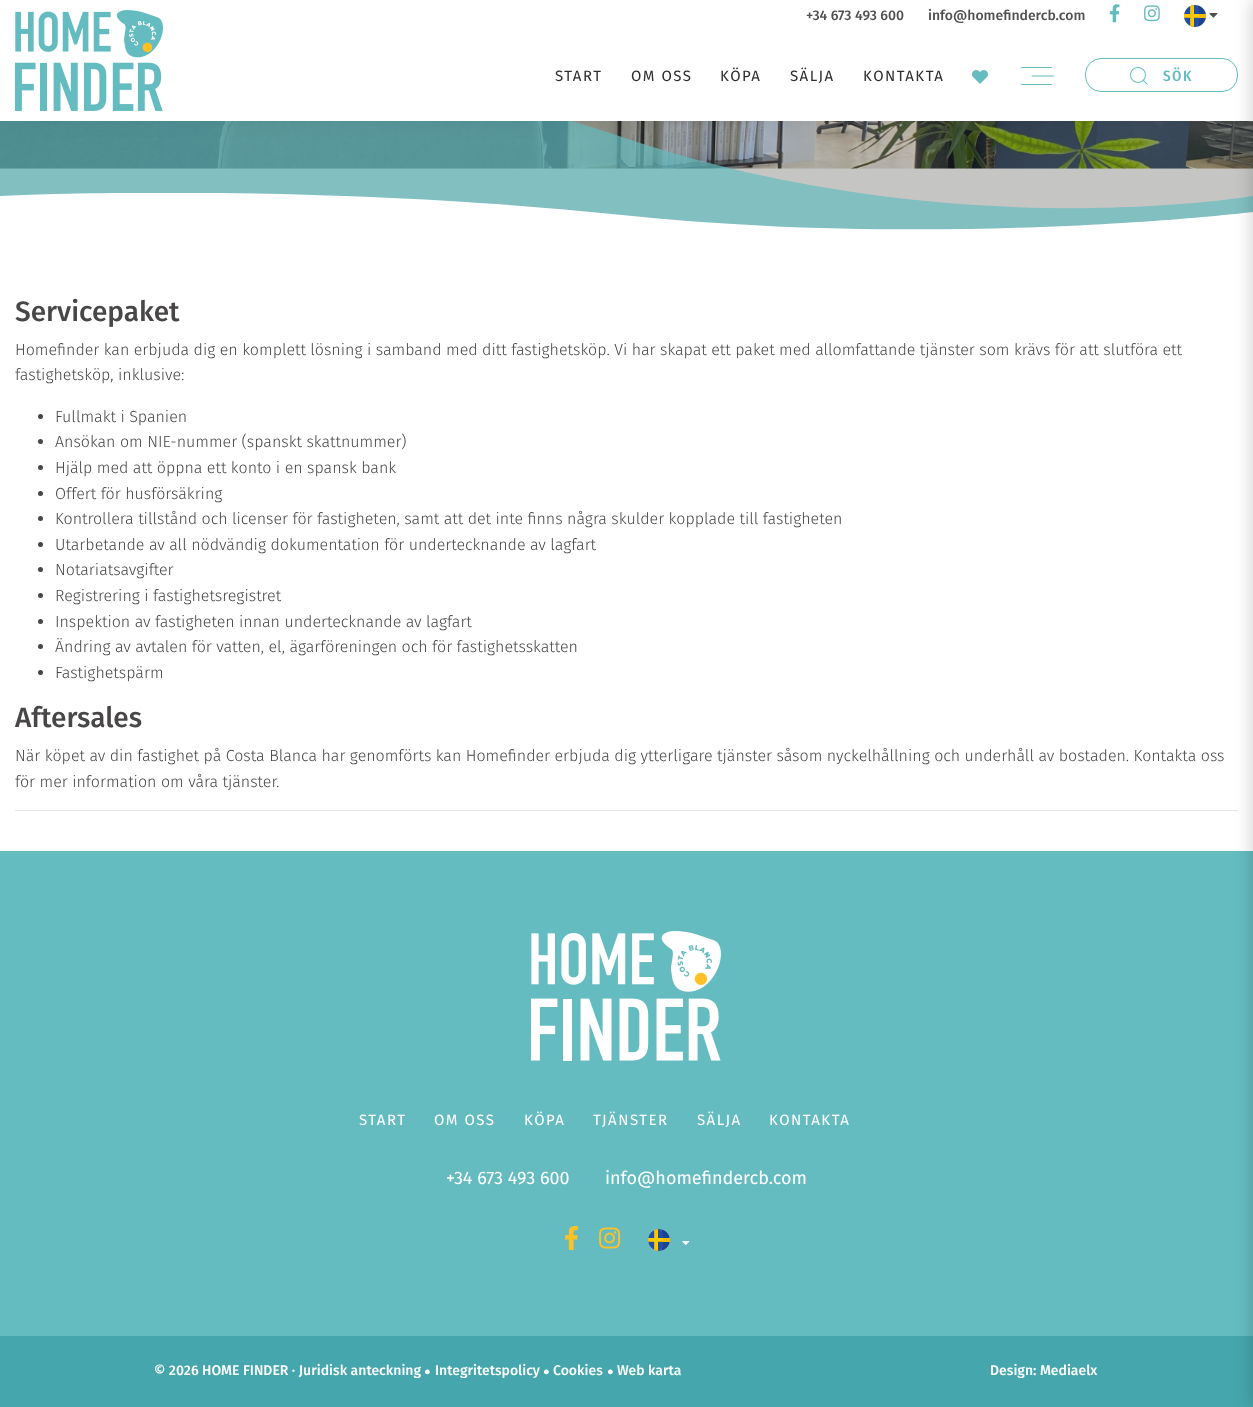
<svg xmlns="http://www.w3.org/2000/svg" width="1253" height="1407">
<style>
.a{font:500 14px Fira Sans;fill:#505050}
.b{font:15px Fira Sans;letter-spacing:1.5px;fill:#2e2e2d}
.c{font:500 15px Fira Sans Condensed;letter-spacing:1.5px;fill:#64bcc1}
.d{font:500 28px Fira Sans;fill:#484646}
.e{font:300 16px Fira Sans;fill:#484646}
.f{font:15px Fira Sans;letter-spacing:1.5px;fill:#fff}
.g{font:18px Fira Sans;fill:#fff}
.h{font:500 14px Fira Sans;fill:#fff}
.i{font:11px Liberation Sans;fill:#fff}
</style>
<defs>
<clipPath id="clip1"><path d="M0 65h1253v182H0z"/></clipPath>
<clipPath id="clip2"><path d="M0 193h1253v54H0z"/></clipPath>
</defs>
<rect width="100%" height="100%" fill="#fff"/>
<path fill="#c5c5c3" d="M0 168h1253v62H0z"/>
<image href="8.png" x="0" y="121" width="1253" height="48"/>
<g clip-path="url(#clip1)">
<path fill="#64bcc1b3" d="M0 76c0 0 295-49 622 61c328 111 631 59 631 59v52h-1253z"/>
</g>
<path fill="#0000000f" filter="blur(10px)" d="M0 0h1253v121H0z"/>
<path fill="#fff" d="M0 0h1253v121H0z"/>
<image href="1.png" x="15" y="10" width="148" height="101"/>
<image href="2.png" x="1109" y="4" width="11" height="19"/>
<image href="3.png" x="1144" y="5" width="16" height="17"/>
<image href="4.png" x="1184" y="5" width="22" height="22"/>
<image href="5.png" x="1209" y="13" width="9" height="5"/>
<image href="6.png" x="972" y="70" width="16" height="14"/>
<path fill="none" stroke="#64bcc1" stroke-linecap="round" d="M1021.5 67.5h30m-30 17h30m-19.5-8.5h21.5"/>
<rect fill="none" stroke="#64bcc1" x="1085.5" y="58.5" width="152" height="33" rx="15.5"/>
<image href="7.png" x="1130" y="67" width="18" height="18"/>
<g clip-path="url(#clip2)">
<path fill="#fff" d="M0 196c0 0 295-15 622 19c328 34 631-3 631-3v37h-1253z"/>
</g>
<path fill="#e6e6e6" d="M15 810h1223v1H15z"/>
<path fill="#64bcc1" d="M0 851h1253v485H0z"/>
<path fill="#45a7ad" d="M0 1336h1253v71H0z"/>
<path fill="#00000033" filter="blur(9px)" d="M1253 0h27v1407H1253z"/>
<circle fill="#484646" cx="40.5" cy="416.5" r="2.5"/>
<circle fill="#484646" cx="40.5" cy="441.5" r="2.5"/>
<circle fill="#484646" cx="40.5" cy="467.5" r="2.5"/>
<circle fill="#484646" cx="40.5" cy="493.5" r="2.5"/>
<circle fill="#484646" cx="40.5" cy="518.5" r="2.5"/>
<circle fill="#484646" cx="40.5" cy="544.5" r="2.5"/>
<circle fill="#484646" cx="40.5" cy="569.5" r="2.5"/>
<circle fill="#484646" cx="40.5" cy="595.5" r="2.5"/>
<circle fill="#484646" cx="40.5" cy="621.5" r="2.5"/>
<circle fill="#484646" cx="40.5" cy="646.5" r="2.5"/>
<circle fill="#484646" cx="40.5" cy="672.5" r="2.5"/>
<image href="9.png" x="531" y="931" width="190" height="130"/>
<image href="10.png" x="565" y="1226" width="13" height="24"/>
<image href="11.png" x="599" y="1227" width="22" height="22"/>
<image href="12.png" x="648" y="1229" width="22" height="22"/>
<image href="13.png" x="682" y="1241" width="8" height="4"/>
<text class="a" x="806" y="20">+34 673 493 600</text>
<text class="a" x="928" y="20">info@homefindercb.com</text>
<text class="b" x="555" y="81">START</text>
<text class="b" x="631" y="81">OM OSS</text>
<text class="b" x="720" y="81">KÖPA</text>
<text class="b" x="790" y="81">SÄLJA</text>
<text class="b" x="863" y="81">KONTAKTA</text>
<text class="c" x="1163" y="81">SÖK</text>
<text class="d" x="15" y="321">Servicepaket</text>
<text class="e" x="15" y="355">Homefinder kan erbjuda dig en komplett lösning i samband med ditt fastighetsköp. Vi har skapat ett paket med allomfattande tjänster som krävs för att slutföra ett</text>
<text class="e" x="15" y="380">fastighetsköp, inklusive:</text>
<text class="e" x="55" y="422">Fullmakt i Spanien</text>
<text class="e" x="55" y="447">Ansökan om NIE-nummer (spanskt skattnummer)</text>
<text class="e" x="55" y="473">Hjälp med att öppna ett konto i en spansk bank</text>
<text class="e" x="55" y="499">Offert för husförsäkring</text>
<text class="e" x="55" y="524">Kontrollera tillstånd och licenser för fastigheten, samt att det inte finns några skulder kopplade till fastigheten</text>
<text class="e" x="55" y="550">Utarbetande av all nödvändig dokumentation för undertecknande av lagfart</text>
<text class="e" x="55" y="575">Notariatsavgifter</text>
<text class="e" x="55" y="601">Registrering i fastighetsregistret</text>
<text class="e" x="55" y="627">Inspektion av fastigheten innan undertecknande av lagfart</text>
<text class="e" x="55" y="652">Ändring av avtalen för vatten, el, ägarföreningen och för fastighetsskatten</text>
<text class="e" x="55" y="678">Fastighetspärm</text>
<text class="d" x="15" y="727">Aftersales</text>
<text class="e" x="15" y="761">När köpet av din fastighet på Costa Blanca har genomförts kan Homefinder erbjuda dig ytterligare tjänster såsom nyckelhållning och underhåll av bostaden. Kontakta oss</text>
<text class="e" x="15" y="787">för mer information om våra tjänster.</text>
<text class="f" x="359" y="1125">START</text>
<text class="f" x="434" y="1125">OM OSS</text>
<text class="f" x="524" y="1125">KÖPA</text>
<text class="f" x="593" y="1125">TJÄNSTER</text>
<text class="f" x="697" y="1125">SÄLJA</text>
<text class="f" x="769" y="1125">KONTAKTA</text>
<text class="g" x="446" y="1184">+34 673 493 600</text>
<text class="g" x="605" y="1184">info@homefindercb.com</text>
<text class="h" x="154" y="1375">© 2026 HOME FINDER · Juridisk anteckning</text>
<text class="i" x="424" y="1375">●</text>
<text class="h" x="435" y="1375">Integritetspolicy</text>
<text class="i" x="543" y="1375">●</text>
<text class="h" x="553" y="1375">Cookies</text>
<text class="i" x="607" y="1375">●</text>
<text class="h" x="617" y="1375">Web karta</text>
<text class="h" x="990" y="1375">Design: Mediaelx</text>
</svg>
